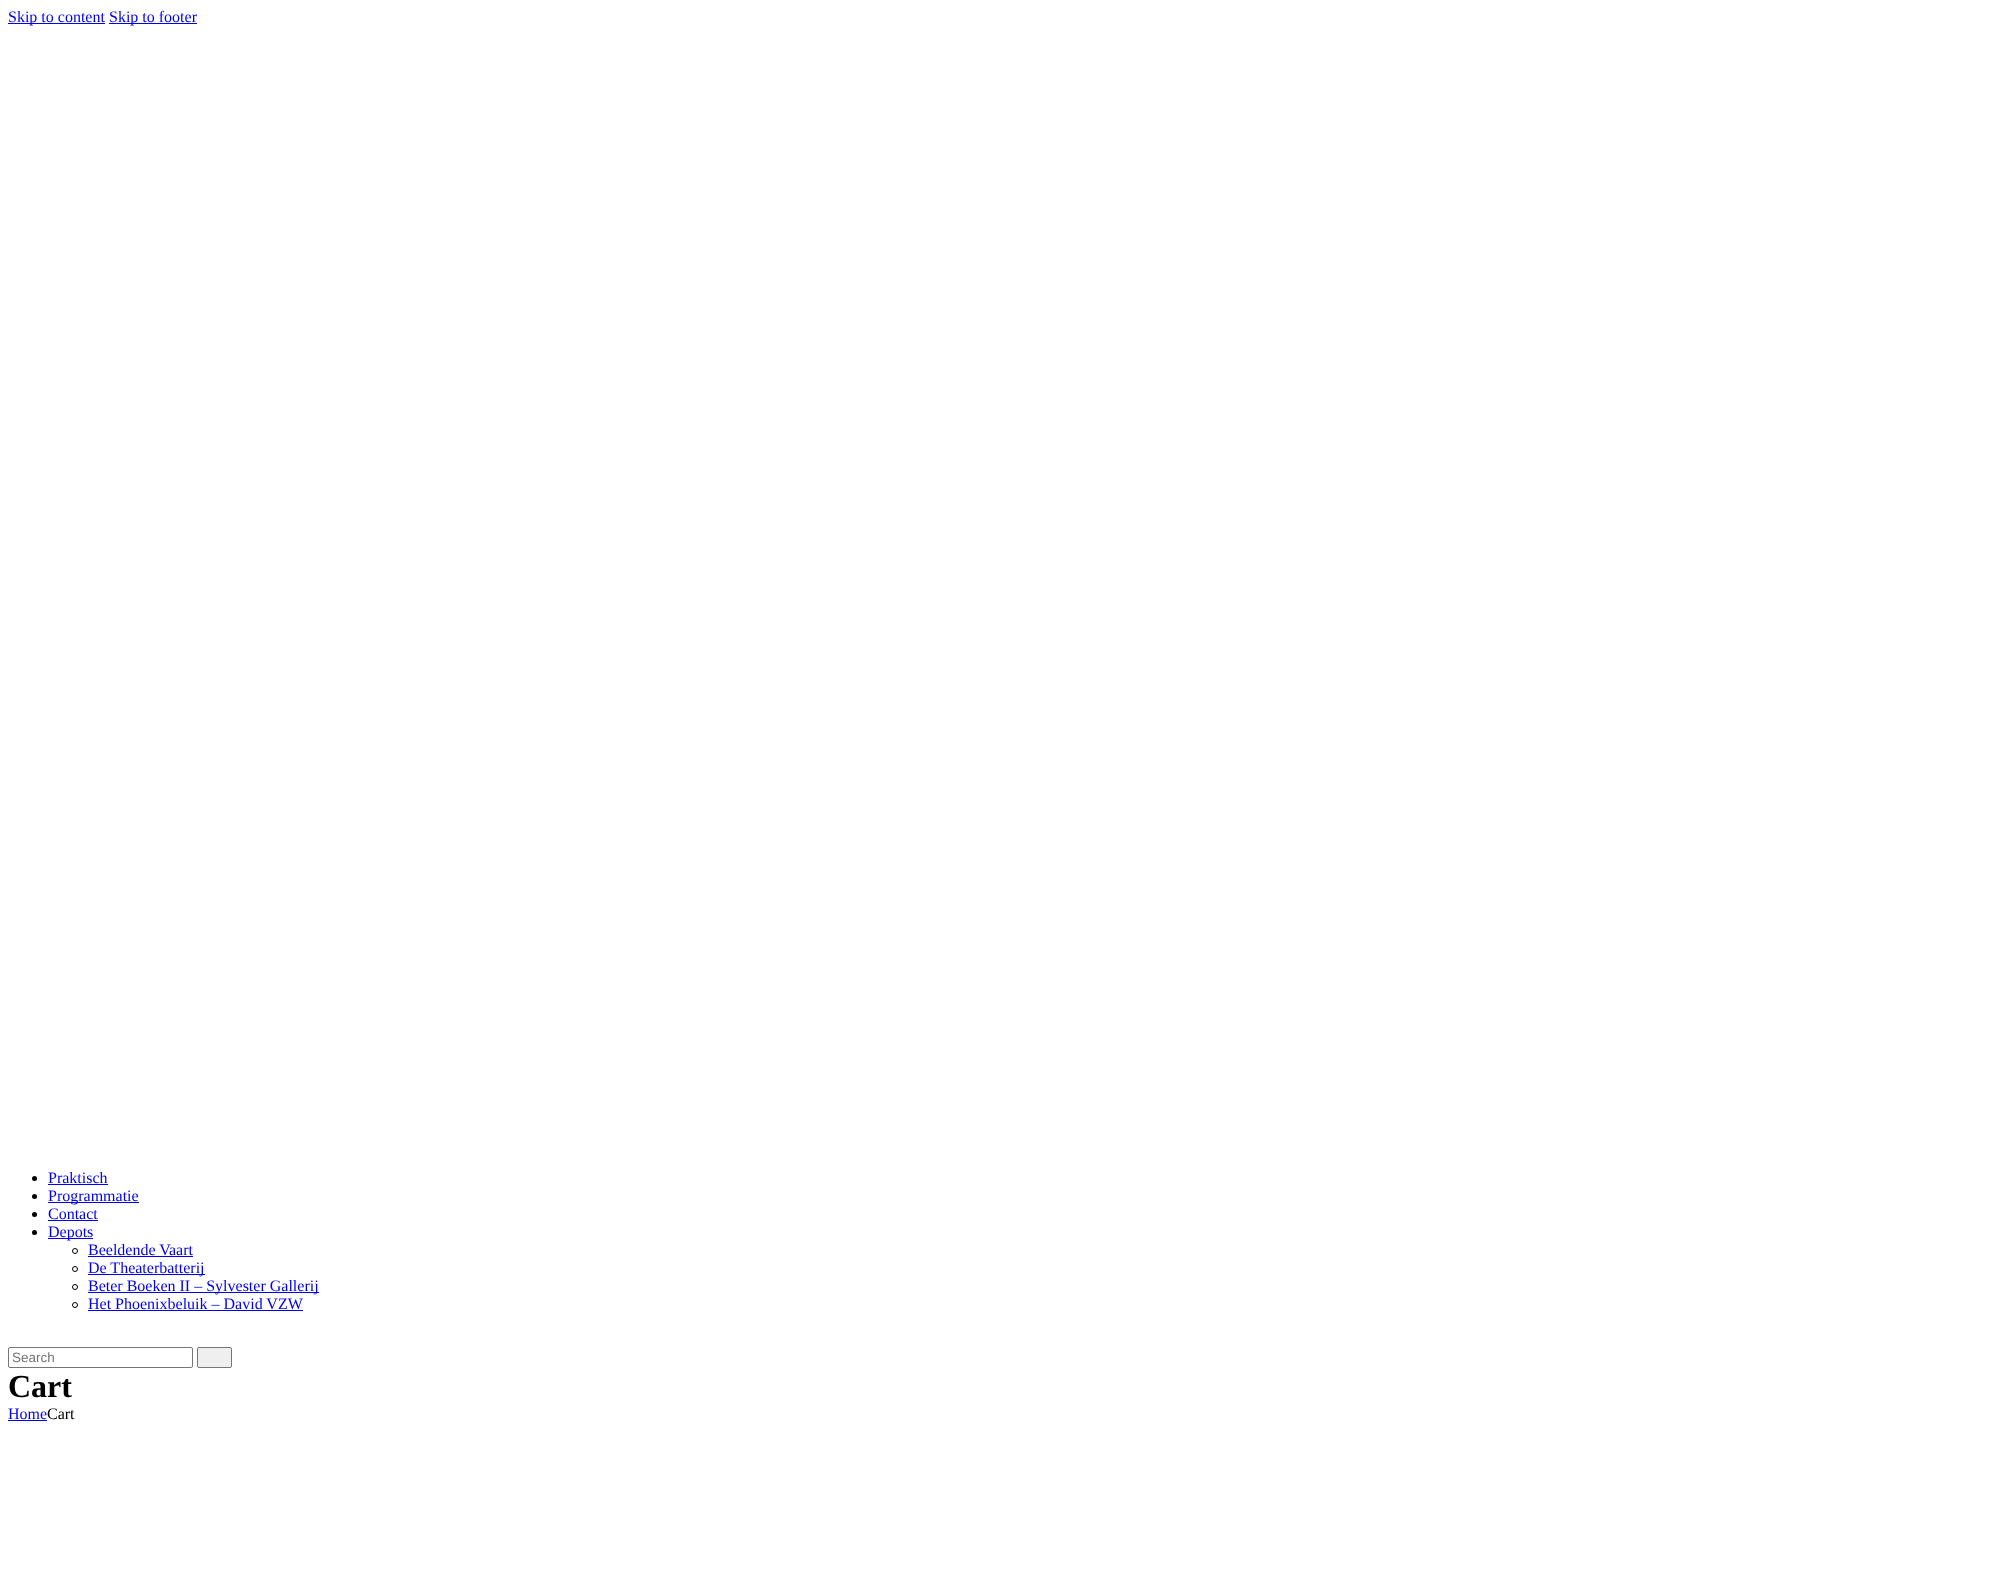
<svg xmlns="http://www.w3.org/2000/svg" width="2014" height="1576">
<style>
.a{font:16px Liberation Serif;fill:#00e}
.b{font:13.5px Liberation Sans;fill:#757575}
.c{font:bold 32px Liberation Serif;fill:#000}
.d{font:16px Liberation Serif;fill:#000}
</style>
<rect width="100%" height="100%" fill="#fff"/>
<path fill="#00e" d="M8 23h97v1H8z"/>
<path fill="#00e" d="M109 23h88v1H109z"/>
<circle fill="#000" cx="34.5" cy="1178.5" r="2.5"/>
<path fill="#00e" d="M48 1184h60v1H48z"/>
<circle fill="#000" cx="34.5" cy="1196.5" r="2.5"/>
<path fill="#00e" d="M48 1202h91v1H48z"/>
<circle fill="#000" cx="34.5" cy="1214.5" r="2.5"/>
<path fill="#00e" d="M48 1220h50v1H48z"/>
<circle fill="#000" cx="34.5" cy="1232.5" r="2.5"/>
<path fill="#00e" d="M48 1238h45v1H48z"/>
<circle fill="none" stroke="#000" cx="75" cy="1251" r="2.5"/>
<path fill="#00e" d="M88 1256h105v1H88z"/>
<circle fill="none" stroke="#000" cx="75" cy="1269" r="2.5"/>
<path fill="#00e" d="M88 1274h117v1H88z"/>
<circle fill="none" stroke="#000" cx="75" cy="1287" r="2.5"/>
<path fill="#00e" d="M88 1292h231v1H88z"/>
<circle fill="none" stroke="#000" cx="75" cy="1305" r="2.5"/>
<path fill="#00e" d="M88 1310h215v1H88z"/>
<rect fill="none" stroke="#767676" x="8.5" y="1347.5" width="184" height="20" rx="1.5"/>
<rect fill="#efefef" stroke="#767676" x="197.5" y="1347.5" width="34" height="20" rx="1.5"/>
<path fill="#00e" d="M8 1420h39v1H8z"/>
<text class="a" x="8" y="22">Skip to content</text>
<text class="a" x="109" y="22">Skip to footer</text>
<text class="a" x="48" y="1183">Praktisch</text>
<text class="a" x="48" y="1201">Programmatie</text>
<text class="a" x="48" y="1219">Contact</text>
<text class="a" x="48" y="1237">Depots</text>
<text class="a" x="88" y="1255">Beeldende Vaart</text>
<text class="a" x="88" y="1273">De Theaterbatterij</text>
<text class="a" x="88" y="1291">Beter Boeken II – Sylvester Gallerij</text>
<text class="a" x="88" y="1309">Het Phoenixbeluik – David VZW</text>
<text class="b" x="12" y="1362">Search</text>
<text class="c" x="8" y="1397">Cart</text>
<text class="a" x="8" y="1419">Home</text>
<text class="d" x="47" y="1419">Cart</text>
</svg>
